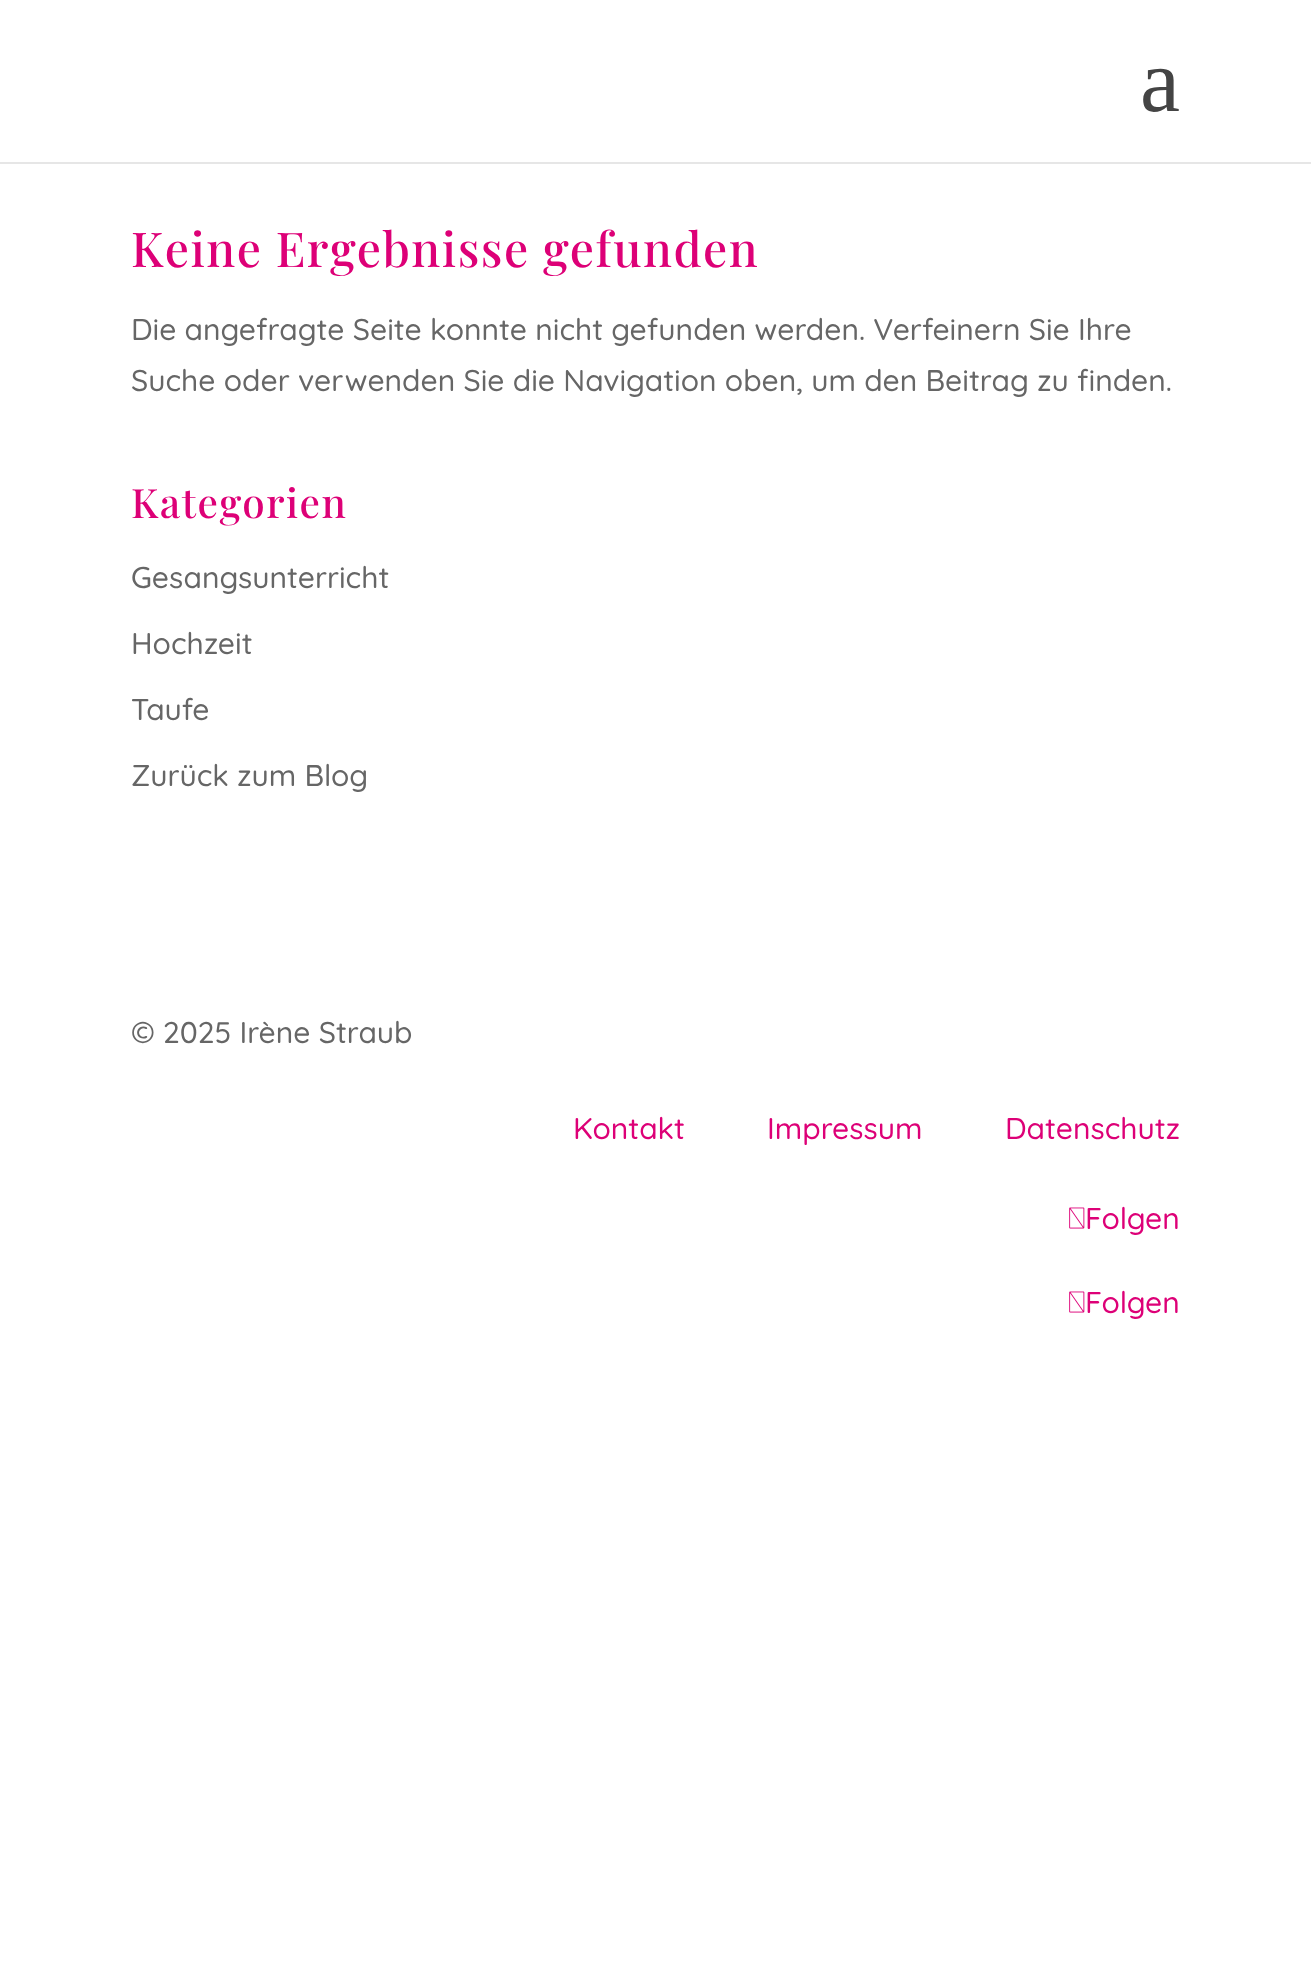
<svg xmlns="http://www.w3.org/2000/svg" width="1311" height="1981">
<style>
.a{font:90px Liberation Serif;fill:#444}
.b{font:500 48px Playfair Display;letter-spacing:1.5px;fill:#d07}
.c{font:500 30px Quicksand;fill:#666}
.d{font:500 40.5px Playfair Display;letter-spacing:1.5px;fill:#d07}
.e{font:500 30px Quicksand;fill:#d07}
</style>
<rect width="100%" height="100%" fill="#fff"/>
<path fill="#e6e6e6" d="M0 162h1311v2H0z"/>
<image href="1.png" x="1069" y="1207" width="16" height="22"/>
<image href="1.png" x="1069" y="1291" width="16" height="22"/>
<text class="a" x="1140" y="111">a</text>
<text class="b" x="131" y="267">Keine Ergebnisse gefunden</text>
<text class="c" x="131" y="340">Die angefragte Seite konnte nicht gefunden werden. Verfeinern Sie Ihre</text>
<text class="c" x="131" y="391">Suche oder verwenden Sie die Navigation oben, um den Beitrag zu finden.</text>
<text class="d" x="131" y="518">Kategorien</text>
<text class="c" x="131" y="588">Gesangsunterricht</text>
<text class="c" x="131" y="654">Hochzeit</text>
<text class="c" x="131" y="720">Taufe</text>
<text class="c" x="131" y="786">Zurück zum Blog</text>
<text class="c" x="131" y="1043">© 2025 Irène Straub</text>
<text class="e" x="573" y="1139">Kontakt</text>
<text class="e" x="767" y="1139">Impressum</text>
<text class="e" x="1005" y="1139">Datenschutz</text>
<text class="e" x="1085" y="1229">Folgen</text>
<text class="e" x="1085" y="1313">Folgen</text>
</svg>
